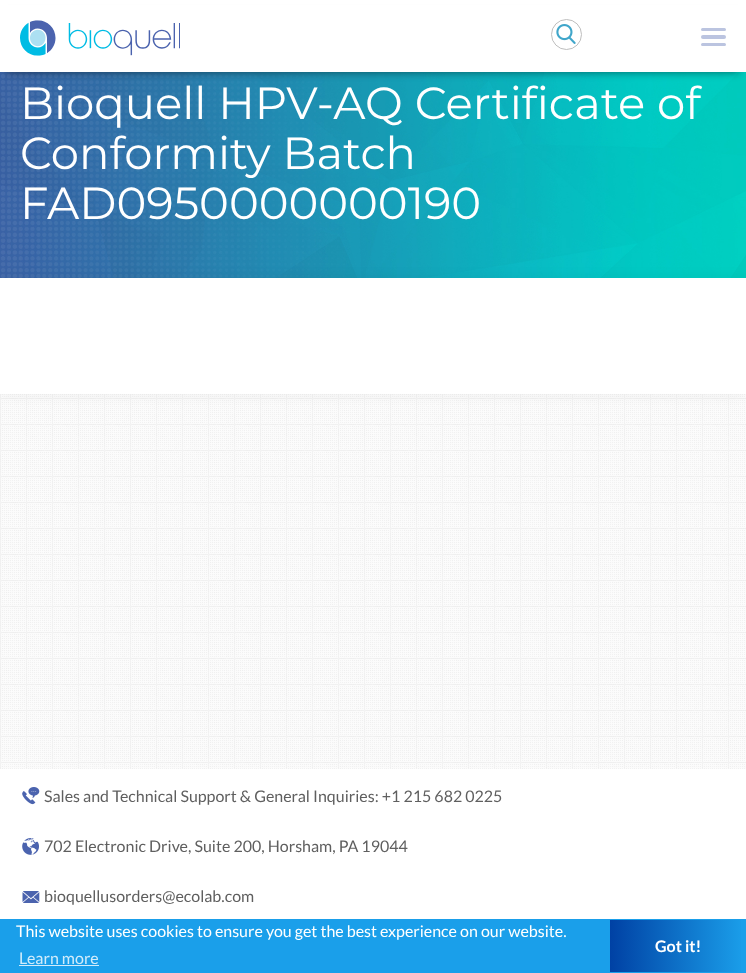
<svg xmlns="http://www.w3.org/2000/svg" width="746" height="973">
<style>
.a{font:45px Montserrat;fill:#fff}
.b{font:16px Lato;fill:#5f5f5f}
.c{font:16px Lato;fill:#fff}
.d{font:16px Lato;fill:#d1ecfb}
.e{font:bold 16px Lato;fill:#fff}
</style>
<defs>
<linearGradient id="g1" gradientUnits="userSpaceOnUse" x1="746" y1="946" x2="610" y2="946"><stop offset="0" stop-color="#1ba0eb"/><stop offset="1" stop-color="#0041a4"/></linearGradient>
</defs>
<rect width="100%" height="100%" fill="#fff"/>
<image href="1.png" x="0" y="394" width="746" height="375"/>
<image href="4.png" x="0" y="72" width="746" height="206"/>
<path fill="#00000080" filter="blur(4.5px)" d="M7 14h732v58H7z"/>
<path fill="#fff" d="M0 5h746v67H0z"/>
<image href="2.png" x="20" y="20" width="160" height="36"/>
<circle fill="none" stroke="#bebebe" cx="566.5" cy="34.5" r="15"/>
<image href="3.png" x="556" y="24" width="20" height="20"/>
<rect fill="#bbc4e0" x="701" y="28" width="25" height="3" rx="1.5"/>
<rect fill="#bbc4e0" x="701" y="35" width="25" height="4" rx="2"/>
<rect fill="#bbc4e0" x="701" y="43" width="25" height="3" rx="1.5"/>
<path fill="#0000000d" filter="blur(6.5px)" d="M0 278h746v116H0z"/>
<path fill="#fff" d="M0 278h746v116H0z"/>
<image href="5.png" x="22" y="787" width="18" height="18"/>
<image href="6.png" x="22" y="838" width="17" height="17"/>
<image href="7.png" x="22" y="891" width="18" height="12"/>
<path fill="#1a9fea" d="M0 919h746v54H0z"/>
<path fill="#d1ecfb" d="M19 965h80v1H19z"/>
<path fill="url(#g1)" d="M610 920h131v52H610z"/>
<text class="a" x="20" y="119">Bioquell HPV-AQ Certificate of</text>
<text class="a" x="20" y="169">Conformity Batch</text>
<text class="a" x="20" y="219">FAD0950000000190</text>
<text class="b" x="44" y="802">Sales and Technical Support &amp; General Inquiries: +1 215 682 0225</text>
<text class="b" x="44" y="852">702 Electronic Drive, Suite 200, Horsham, PA 19044</text>
<text class="b" x="44" y="902">bioquellusorders@ecolab.com</text>
<text class="c" x="16" y="937">This website uses cookies to ensure you get the best experience on our website.</text>
<text class="d" x="19" y="964">Learn more</text>
<text class="e" x="655" y="952">Got it!</text>
</svg>
